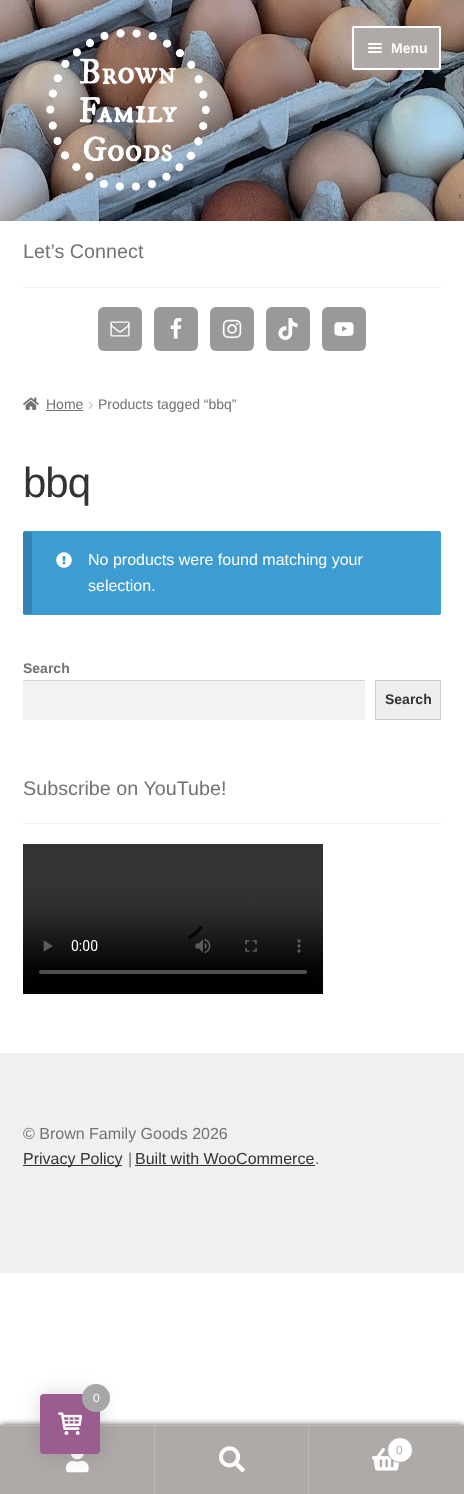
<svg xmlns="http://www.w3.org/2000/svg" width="464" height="1494">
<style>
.a{font:bold 14px Liberation Sans;fill:#fff}
.b{font:19.75px Liberation Sans;fill:#727272}
.c{font:14px Liberation Sans;fill:#727272}
.d{font:42px Liberation Sans;letter-spacing:-1px;fill:#333}
.e{font:16px Liberation Sans;fill:#fff}
.f{font:bold 14px Liberation Sans;fill:#727272}
.g{font:bold 14px Liberation Sans;fill:#333}
.h{font:16px Liberation Sans;fill:#727272}
.i{font:16px Liberation Sans;fill:#333}
.j{font:12px Liberation Sans;fill:#afa9a8}
.k{font:12px Liberation Sans;fill:#fff}
</style>
<rect width="100%" height="100%" fill="#fff"/>
<image href="1.png" x="0" y="0" width="464" height="221"/>
<image href="2.png" x="46" y="29" width="164" height="162"/>
<rect fill="#afa9a8" stroke="#fff" stroke-width="2" x="353" y="27" width="87" height="42" rx="1"/>
<rect fill="#fff" x="368" y="43" width="14" height="2" rx="1"/>
<rect fill="#fff" x="368" y="47" width="14" height="2" rx="1"/>
<rect fill="#fff" x="368" y="51" width="14" height="2" rx="1"/>
<path fill="#f2f2f2" d="M23 287h418v1H23z"/>
<rect fill="#999" x="98" y="307" width="44" height="44" rx="6"/>
<image href="3.png" x="110" y="321" width="20" height="16"/>
<rect fill="#999" x="154" y="307" width="44" height="44" rx="6"/>
<image href="4.png" x="170" y="318" width="12" height="21"/>
<rect fill="#999" x="210" y="307" width="44" height="44" rx="6"/>
<image href="5.png" x="222" y="319" width="20" height="20"/>
<rect fill="#999" x="266" y="307" width="44" height="44" rx="6"/>
<image href="6.png" x="278" y="318" width="20" height="22"/>
<rect fill="#999" x="322" y="307" width="44" height="44" rx="6"/>
<image href="7.png" x="334" y="322" width="20" height="14"/>
<image href="8.png" x="23" y="397" width="16" height="13"/>
<path fill="#727272" d="M46 410h37v1H46z"/>
<image href="9.png" x="88" y="401" width="6" height="8"/>
<rect fill="#3d9cd2" x="23" y="531" width="418" height="84" rx="2"/>
<path fill="#00000026" d="M23 532h9v82H23z"/>
<image href="10.png" x="56" y="552" width="16" height="16"/>
<path fill="#f2f2f2" d="M23 681h342v39H23z"/>
<path fill="#d4d4d4" d="M23 680h342v1H23z"/>
<path fill="#eee" stroke="#ccc" d="M375.5 680.5h65v39H375.5z"/>
<path fill="#f2f2f2" d="M23 823h418v1H23z"/>
<image href="11.png" x="23" y="844" width="300" height="150"/>
<path fill="#f0f0f0" d="M0 1053h464v220H0z"/>
<path fill="#333" d="M23 1165h99v1H23z"/>
<path fill="#333" d="M135 1165h180v1H135z"/>
<path fill="#000000b3" filter="blur(3px)" d="M0 1425h464v69H0z"/>
<path fill="#bfbab9" d="M0 1425h464v1H0z"/>
<path fill="#afa9a8" d="M0 1426h154v68H0z"/>
<path fill="#bfbab9" d="M154 1426h1v68H154z"/>
<image href="12.png" x="66" y="1454" width="23" height="19"/>
<path fill="#afa9a8" d="M155 1426h153v68H155z"/>
<path fill="#bfbab9" d="M308 1426h1v68H308z"/>
<image href="13.png" x="219" y="1446" width="26" height="27"/>
<path fill="#afa9a8" d="M309 1426h155v68H309z"/>
<image href="14.png" x="372" y="1448" width="28" height="23"/>
<circle fill="#fff" stroke="#afa9a8" cx="400" cy="1450" r="12.5"/>
<rect fill="#00000026" filter="blur(10px)" x="40" y="1394" width="60" height="60" rx="4"/>
<rect fill="#9b5c8f" x="40" y="1394" width="60" height="60" rx="4"/>
<circle fill="#a7a7a7" cx="96" cy="1398" r="14"/>
<image href="15.png" x="58" y="1412" width="25" height="23"/>
<text class="a" x="391" y="53">Menu</text>
<text class="b" x="23" y="258">Let’s Connect</text>
<text class="c" x="46" y="409">Home</text>
<text class="c" x="98" y="409">Products tagged “bbq”</text>
<text class="d" x="23" y="497">bbq</text>
<text class="e" x="88" y="565">No products were found matching your</text>
<text class="e" x="88" y="591">selection.</text>
<text class="f" x="23" y="673">Search</text>
<text class="g" x="385" y="704">Search</text>
<text class="b" x="23" y="795">Subscribe on YouTube!</text>
<text class="h" x="23" y="1139">© Brown Family Goods 2026</text>
<text class="i" x="23" y="1164">Privacy Policy</text>
<text class="h" x="128" y="1164">|</text>
<text class="i" x="135" y="1164">Built with WooCommerce</text>
<text class="h" x="315" y="1164">.</text>
<text class="j" x="396" y="1454">0</text>
<text class="k" x="93" y="1402">0</text>
</svg>
